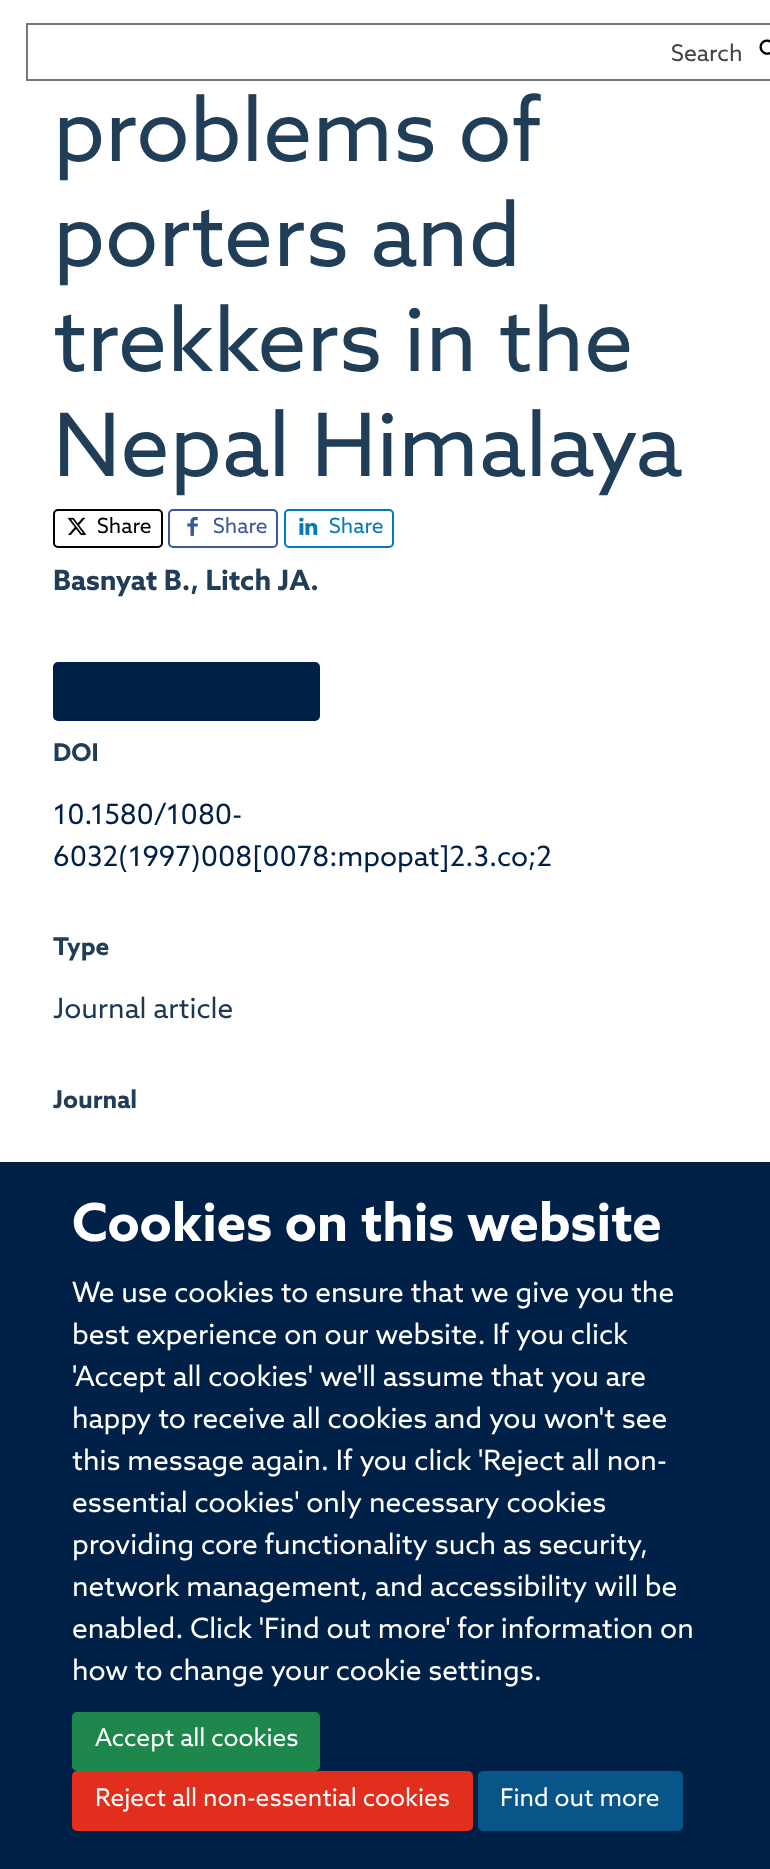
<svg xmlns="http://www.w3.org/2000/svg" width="770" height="1869">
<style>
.a{font:23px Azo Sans;fill:#444}
.b{font:87.5px Azo Sans;fill:#203e58}
.c{font:21px Azo Sans;fill:#000}
.d{font:21px Azo Sans;fill:#3b5998}
.e{font:21px Azo Sans;fill:#007bb6}
.f{font:bold 28px Azo Sans;fill:#203e58}
.g{font:bold 24.5px Azo Sans;fill:#203e58}
.h{font:28px Azo Sans;fill:#002147}
.i{font:28px Azo Sans;fill:#1d3850}
.j{font:bold 52.5px Azo Sans;fill:#fff}
.k{font:28px Azo Sans;fill:#fff}
.l{font:24.5px Azo Sans;fill:#fff}
</style>
<rect width="100%" height="100%" fill="#fff"/>
<path fill="none" stroke="#777" stroke-width="2" d="M27 24h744v56H27z"/>
<image href="1.png" x="759" y="39" width="11" height="16"/>
<rect fill="none" stroke="#000" stroke-width="2" x="54" y="510" width="108" height="37" rx="4"/>
<image href="2.png" x="67" y="517" width="20" height="18"/>
<rect fill="none" stroke="#3b5998" stroke-width="2" x="169" y="510" width="108" height="37" rx="4"/>
<image href="3.png" x="187" y="516" width="11" height="20"/>
<rect fill="none" stroke="#007bb6" stroke-width="2" x="285" y="510" width="108" height="37" rx="4"/>
<image href="4.png" x="299" y="517" width="19" height="18"/>
<rect fill="#002147" stroke="#002147" stroke-width="2" x="54" y="663" width="265" height="57" rx="4"/>
<path fill="#002147" d="M0 1162h770v707H0z"/>
<rect fill="#1e874b" stroke="#1e874b" stroke-width="2" x="73" y="1713" width="246" height="57" rx="4"/>
<rect fill="#e22e1c" stroke="#e22e1c" stroke-width="2" x="73" y="1772" width="399" height="58" rx="4"/>
<rect fill="#085589" stroke="#085589" stroke-width="2" x="479" y="1772" width="203" height="58" rx="4"/>
<text class="a" x="671" y="61">Search</text>
<text class="b" x="53" y="161">problems of</text>
<text class="b" x="53" y="266">porters and</text>
<text class="b" x="53" y="371">trekkers in the</text>
<text class="b" x="53" y="476">Nepal Himalaya</text>
<text class="c" x="97" y="533">Share</text>
<text class="d" x="213" y="533">Share</text>
<text class="e" x="329" y="533">Share</text>
<text class="f" x="53" y="590">Basnyat B., Litch JA.</text>
<text class="g" x="53" y="761">DOI</text>
<text class="h" x="53" y="824">10.1580/1080-</text>
<text class="h" x="53" y="866">6032(1997)008[0078:mpopat]2.3.co;2</text>
<text class="g" x="53" y="955">Type</text>
<text class="i" x="53" y="1018">Journal article</text>
<text class="g" x="53" y="1108">Journal</text>
<text class="j" x="72" y="1241">Cookies on this website</text>
<text class="k" x="72" y="1302">We use cookies to ensure that we give you the</text>
<text class="k" x="72" y="1344">best experience on our website. If you click</text>
<text class="k" x="72" y="1386">'Accept all cookies' we'll assume that you are</text>
<text class="k" x="72" y="1428">happy to receive all cookies and you won't see</text>
<text class="k" x="72" y="1470">this message again. If you click 'Reject all non-</text>
<text class="k" x="72" y="1512">essential cookies' only necessary cookies</text>
<text class="k" x="72" y="1554">providing core functionality such as security,</text>
<text class="k" x="72" y="1596">network management, and accessibility will be</text>
<text class="k" x="72" y="1638">enabled. Click 'Find out more' for information on</text>
<text class="k" x="72" y="1680">how to change your cookie settings.</text>
<text class="l" x="95" y="1746">Accept all cookies</text>
<text class="l" x="95" y="1806">Reject all non-essential cookies</text>
<text class="l" x="500" y="1806">Find out more</text>
</svg>
